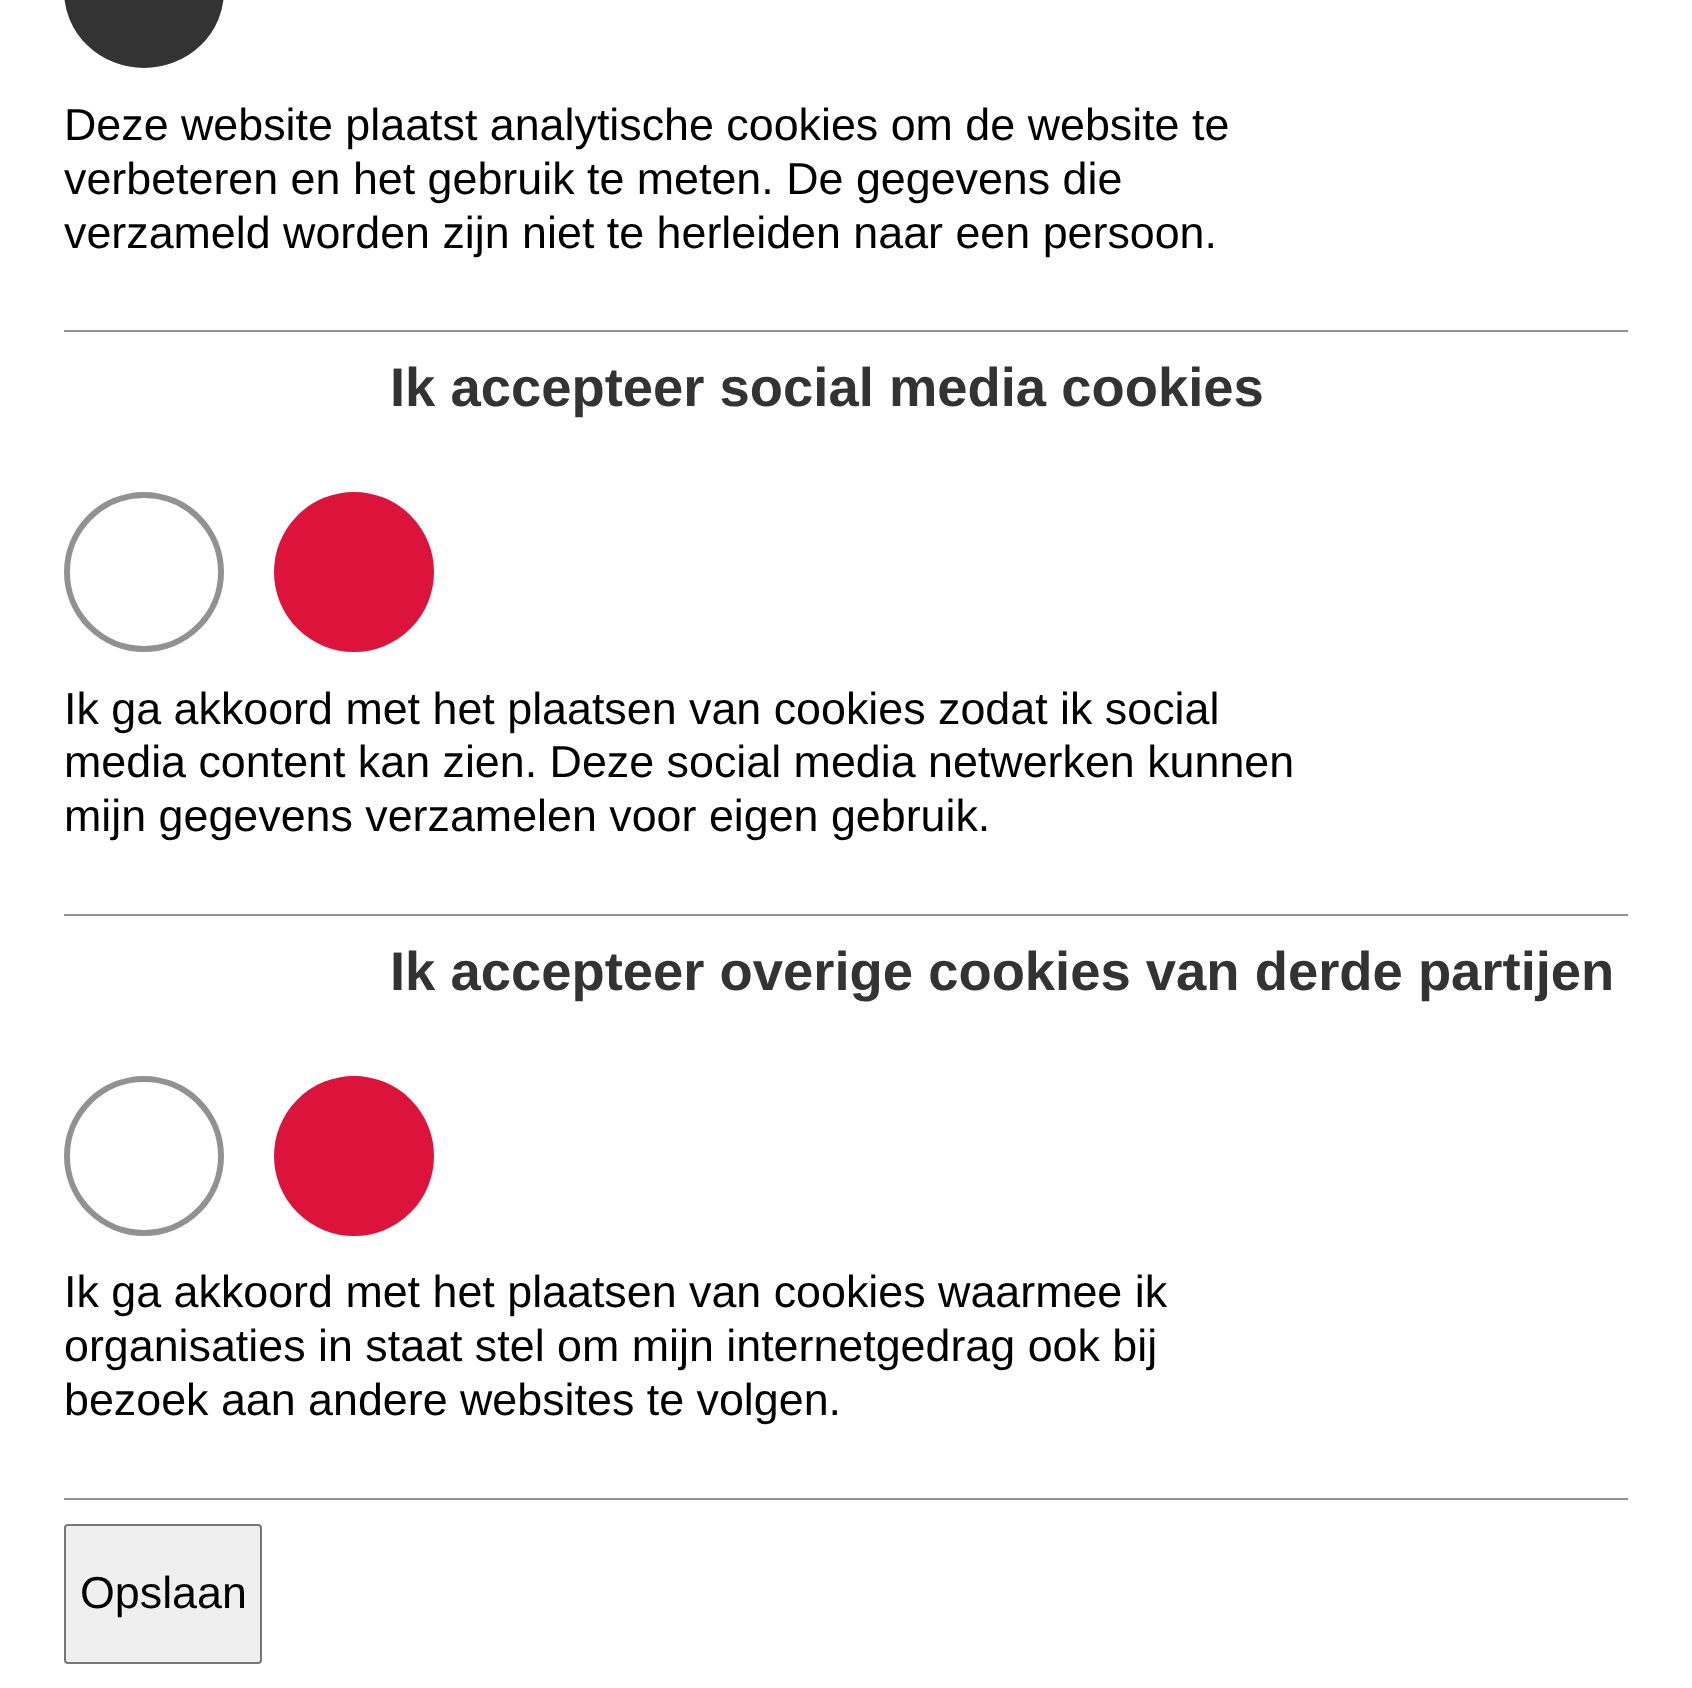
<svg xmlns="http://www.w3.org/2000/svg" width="1692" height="1688">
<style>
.a{font:44.8px Liberation Sans;fill:#000}
.b{font:bold 54.4px Liberation Sans;fill:#333}
</style>
<rect width="100%" height="100%" fill="#fff"/>
<path fill="#919191" d="M64 330h1564v2H64z"/>
<rect fill="#333" stroke="#333" stroke-width="6" x="67" y="-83" width="154" height="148" rx="77"/>
<path fill="#919191" d="M64 914h1564v2H64z"/>
<circle fill="none" stroke="#919191" stroke-width="6" cx="144" cy="572" r="77"/>
<circle fill="#dc143c" stroke="#dc143c" stroke-width="6" cx="354" cy="572" r="77"/>
<path fill="#919191" d="M64 1498h1564v2H64z"/>
<circle fill="none" stroke="#919191" stroke-width="6" cx="144" cy="1156" r="77"/>
<circle fill="#dc143c" stroke="#dc143c" stroke-width="6" cx="354" cy="1156" r="77"/>
<rect fill="#efefef" stroke="#767676" stroke-width="2" x="65" y="1525" width="196" height="138" rx="3"/>
<text class="a" x="64" y="140">Deze website plaatst analytische cookies om de website te</text>
<text class="a" x="64" y="194">verbeteren en het gebruik te meten. De gegevens die</text>
<text class="a" x="64" y="248">verzameld worden zijn niet te herleiden naar een persoon.</text>
<text class="b" x="390" y="406">Ik accepteer social media cookies</text>
<text class="a" x="64" y="724">Ik ga akkoord met het plaatsen van cookies zodat ik social</text>
<text class="a" x="64" y="777">media content kan zien. Deze social media netwerken kunnen</text>
<text class="a" x="64" y="831">mijn gegevens verzamelen voor eigen gebruik.</text>
<text class="b" x="390" y="990">Ik accepteer overige cookies van derde partijen</text>
<text class="a" x="64" y="1307">Ik ga akkoord met het plaatsen van cookies waarmee ik</text>
<text class="a" x="64" y="1361">organisaties in staat stel om mijn internetgedrag ook bij</text>
<text class="a" x="64" y="1415">bezoek aan andere websites te volgen.</text>
<text class="a" x="80" y="1608">Opslaan</text>
</svg>
